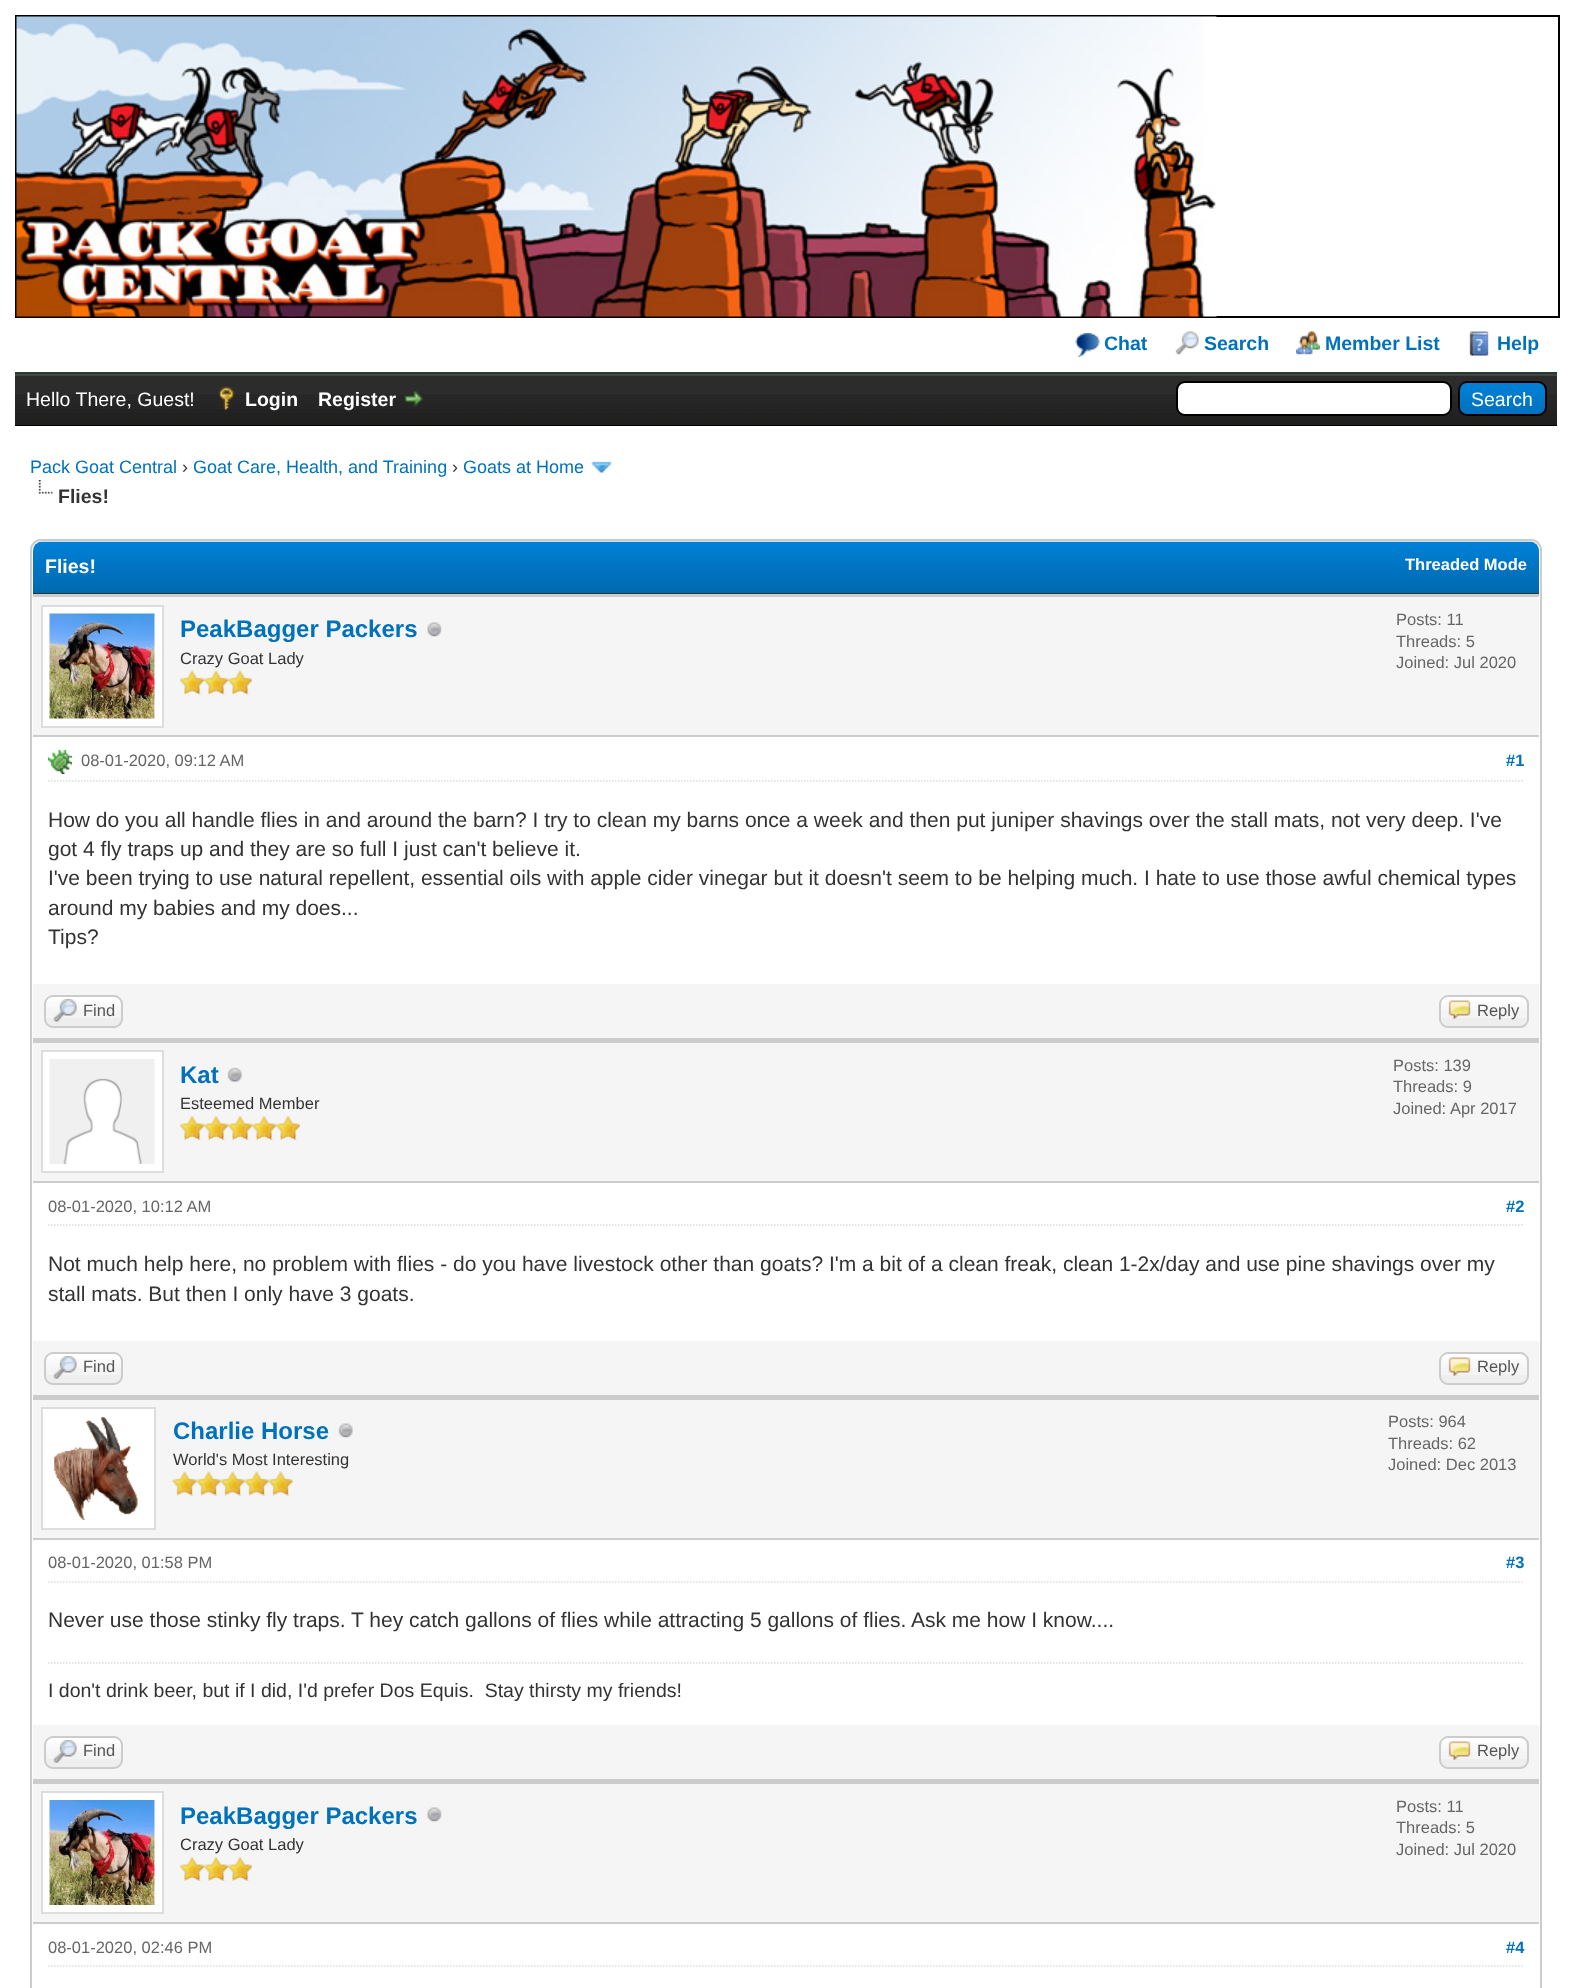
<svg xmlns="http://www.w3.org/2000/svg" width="1572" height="1988">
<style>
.a{font:bold 19.5px Liberation Sans;fill:#0072bc}
.b{font:19.5px Liberation Sans;fill:#fff}
.c{font:bold 19.5px Liberation Sans;fill:#fff}
.d{font:18px Liberation Sans;fill:#0072bc}
.e{font:18px Liberation Sans;fill:#333}
.f{font:bold 19.5px Liberation Sans;fill:#333}
.g{font:bold 16.5px Liberation Sans;fill:#fff}
.h{font:bold 24px Liberation Sans;fill:#0072bc}
.i{font:16.5px Liberation Sans;fill:#333}
.j{font:16.5px Liberation Sans;fill:#666}
.k{font:bold 16.5px Liberation Sans;fill:#0072bc}
.l{font:21px Liberation Sans;fill:#333}
.m{font:16.5px Liberation Sans;fill:#555}
.n{font:19.5px Liberation Sans;fill:#333}
</style>
<rect width="100%" height="100%" fill="#fff"/>
<path fill="#263c30" d="M15 372h1542v2H15z"/>
<path fill="none" stroke="#000" stroke-width="2" d="M16 16h1543v301H16z"/>
<image href="1.png" x="16" y="16" width="1201" height="301"/>
<image href="2.png" x="1075" y="333" width="25" height="24"/>
<image href="3.png" x="1175" y="331" width="24" height="24"/>
<image href="4.png" x="1296" y="331" width="24" height="24"/>
<image href="5.png" x="1469" y="331" width="20" height="25"/>
<image href="6.png" x="15" y="376" width="1542" height="49"/>
<path fill="#444" d="M15 374h1542v2H15z"/>
<path fill="#000" d="M15 425h1542v1H15z"/>
<image href="7.png" x="218" y="387" width="17" height="23"/>
<image href="8.png" x="404" y="391" width="20" height="16"/>
<rect fill="#fff" stroke="#000" stroke-width="2" x="1177" y="382" width="274" height="33" rx="8"/>
<image href="9.png" x="1458" y="382" width="89" height="34"/>
<rect fill="none" stroke="#000" stroke-width="2" x="1459" y="382" width="87" height="33" rx="8"/>
<image href="10.png" x="591" y="461" width="22" height="12"/>
<image href="11.png" x="38" y="480" width="15" height="14"/>
<rect fill="none" stroke="#ccc" stroke-width="2" x="31" y="540" width="1510" height="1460" rx="10"/>
<image href="12.png" x="33" y="541" width="1506" height="52"/>
<path fill="#263c30" d="M33 593h1506v1H33z"/>
<path fill="#f5f5f5" d="M33 597h1506v138H33z"/>
<path fill="#ccc" d="M33 594h1506v3H33z"/>
<path fill="#ccc" d="M33 735h1506v2H33z"/>
<path fill="#fff" stroke="#ddd" stroke-width="2" d="M42 606h121v121H42z"/>
<image href="13.png" x="49" y="613" width="106" height="106"/>
<image href="14.png" x="427" y="622" width="15" height="15"/>
<image href="15.png" x="180" y="670" width="24" height="25"/>
<image href="15.png" x="204" y="670" width="24" height="25"/>
<image href="15.png" x="228" y="670" width="24" height="25"/>
<path fill="none" stroke="#ddd" stroke-width="1.5" stroke-dasharray="1.5 1.5" d="M48 781h1476"/>
<image href="16.png" x="48" y="750" width="24" height="24"/>
<path fill="#f5f5f5" d="M33 984h1506v54H33z"/>
<path fill="#ccc" d="M33 1038h1506v5H33z"/>
<rect fill="#eee" x="44" y="995" width="79" height="33" rx="9"/>
<image href="17.png" x="44" y="996" width="79" height="22"/>
<rect fill="none" stroke="#ccc" stroke-width="2" x="45" y="996" width="77" height="31" rx="8"/>
<image href="18.png" x="53" y="999" width="24" height="23"/>
<rect fill="#eee" x="1439" y="995" width="90" height="33" rx="9"/>
<image href="19.png" x="1439" y="996" width="89" height="22"/>
<rect fill="none" stroke="#ccc" stroke-width="2" x="1440" y="996" width="88" height="31" rx="8"/>
<image href="20.png" x="1448" y="1000" width="23" height="19"/>
<path fill="#f5f5f5" d="M33 1043h1506v138H33z"/>
<path fill="#ccc" d="M33 1181h1506v2H33z"/>
<path fill="#fff" stroke="#ddd" stroke-width="2" d="M42 1051h121v121H42z"/>
<image href="21.png" x="49" y="1059" width="106" height="105"/>
<image href="22.png" x="227" y="1067" width="15" height="15"/>
<image href="23.png" x="180" y="1116" width="24" height="24"/>
<image href="23.png" x="204" y="1116" width="24" height="24"/>
<image href="23.png" x="228" y="1116" width="24" height="24"/>
<image href="23.png" x="252" y="1116" width="24" height="24"/>
<image href="24.png" x="276" y="1116" width="24" height="24"/>
<path fill="none" stroke="#ddd" stroke-width="1.5" stroke-dasharray="1.5 1.5" d="M48 1225h1476"/>
<path fill="#f5f5f5" d="M33 1341h1506v54H33z"/>
<path fill="#ccc" d="M33 1395h1506v5H33z"/>
<rect fill="#eee" x="44" y="1352" width="79" height="33" rx="9"/>
<image href="17.png" x="44" y="1353" width="79" height="22"/>
<rect fill="none" stroke="#ccc" stroke-width="2" x="45" y="1353" width="77" height="31" rx="8"/>
<image href="18.png" x="53" y="1356" width="24" height="23"/>
<rect fill="#eee" x="1439" y="1352" width="90" height="33" rx="9"/>
<image href="19.png" x="1439" y="1353" width="89" height="22"/>
<rect fill="none" stroke="#ccc" stroke-width="2" x="1440" y="1353" width="88" height="31" rx="8"/>
<image href="20.png" x="1448" y="1357" width="23" height="19"/>
<path fill="#f5f5f5" d="M33 1400h1506v138H33z"/>
<path fill="#ccc" d="M33 1538h1506v2H33z"/>
<path fill="#fff" stroke="#ddd" stroke-width="2" d="M42 1408h113v121H42z"/>
<image href="25.png" x="54" y="1417" width="84" height="103"/>
<image href="26.png" x="338" y="1423" width="15" height="15"/>
<image href="27.png" x="172" y="1471" width="25" height="25"/>
<image href="28.png" x="196" y="1471" width="25" height="25"/>
<image href="28.png" x="220" y="1471" width="25" height="25"/>
<image href="28.png" x="244" y="1471" width="25" height="25"/>
<image href="28.png" x="268" y="1471" width="25" height="25"/>
<path fill="none" stroke="#ddd" stroke-width="1.5" stroke-dasharray="1.5 1.5" d="M48 1582h1476"/>
<path fill="none" stroke="#ddd" stroke-width="1.5" stroke-dasharray="1.5 1.5" d="M48 1663h1476"/>
<path fill="#f5f5f5" d="M33 1725h1506v54H33z"/>
<path fill="#ccc" d="M33 1779h1506v5H33z"/>
<rect fill="#eee" x="44" y="1736" width="79" height="33" rx="9"/>
<image href="17.png" x="44" y="1737" width="79" height="22"/>
<rect fill="none" stroke="#ccc" stroke-width="2" x="45" y="1737" width="77" height="31" rx="8"/>
<image href="18.png" x="53" y="1740" width="24" height="23"/>
<rect fill="#eee" x="1439" y="1736" width="90" height="33" rx="9"/>
<image href="19.png" x="1439" y="1737" width="89" height="22"/>
<rect fill="none" stroke="#ccc" stroke-width="2" x="1440" y="1737" width="88" height="31" rx="8"/>
<image href="20.png" x="1448" y="1741" width="23" height="19"/>
<path fill="#f5f5f5" d="M33 1784h1506v138H33z"/>
<path fill="#ccc" d="M33 1922h1506v2H33z"/>
<path fill="#fff" stroke="#ddd" stroke-width="2" d="M42 1792h121v121H42z"/>
<image href="29.png" x="49" y="1800" width="106" height="105"/>
<image href="14.png" x="427" y="1807" width="15" height="15"/>
<image href="23.png" x="180" y="1857" width="24" height="24"/>
<image href="23.png" x="204" y="1857" width="24" height="24"/>
<image href="23.png" x="228" y="1857" width="24" height="24"/>
<path fill="none" stroke="#ddd" stroke-width="1.5" stroke-dasharray="1.5 1.5" d="M48 1966h1476"/>
<text class="a" x="1104" y="350">Chat</text>
<text class="a" x="1204" y="350">Search</text>
<text class="a" x="1325" y="350">Member List</text>
<text class="a" x="1497" y="350">Help</text>
<text class="b" x="26" y="406">Hello There, Guest!</text>
<text class="c" x="245" y="406">Login</text>
<text class="c" x="318" y="406">Register</text>
<text class="b" x="1471" y="406">Search</text>
<text class="d" x="30" y="473">Pack Goat Central</text>
<text class="e" x="182" y="473">›</text>
<text class="d" x="193" y="473">Goat Care, Health, and Training</text>
<text class="e" x="452" y="473">›</text>
<text class="d" x="463" y="473">Goats at Home</text>
<text class="f" x="58" y="503">Flies!</text>
<text class="c" x="45" y="573">Flies!</text>
<text class="g" x="1405" y="570">Threaded Mode</text>
<text class="h" x="180" y="637">PeakBagger Packers</text>
<text class="i" x="180" y="664">Crazy Goat Lady</text>
<text class="j" x="1396" y="625">Posts: 11</text>
<text class="j" x="1396" y="647">Threads: 5</text>
<text class="j" x="1396" y="668">Joined: Jul 2020</text>
<text class="j" x="81" y="766">08-01-2020, 09:12 AM</text>
<text class="k" x="1506" y="766">#1</text>
<text class="l" x="48" y="827">How do you all handle flies in and around the barn? I try to clean my barns once a week and then put juniper shavings over the stall mats, not very deep. I've</text>
<text class="l" x="48" y="856">got 4 fly traps up and they are so full I just can't believe it.</text>
<text class="l" x="48" y="885">I've been trying to use natural repellent, essential oils with apple cider vinegar but it doesn't seem to be helping much. I hate to use those awful chemical types</text>
<text class="l" x="48" y="915">around my babies and my does...</text>
<text class="l" x="48" y="944">Tips?</text>
<text class="m" x="83" y="1016">Find</text>
<text class="m" x="1477" y="1016">Reply</text>
<text class="h" x="180" y="1083">Kat</text>
<text class="i" x="180" y="1109">Esteemed Member</text>
<text class="j" x="1393" y="1071">Posts: 139</text>
<text class="j" x="1393" y="1092">Threads: 9</text>
<text class="j" x="1393" y="1114">Joined: Apr 2017</text>
<text class="j" x="48" y="1212">08-01-2020, 10:12 AM</text>
<text class="k" x="1506" y="1212">#2</text>
<text class="l" x="48" y="1271">Not much help here, no problem with flies - do you have livestock other than goats? I'm a bit of a clean freak, clean 1-2x/day and use pine shavings over my</text>
<text class="l" x="48" y="1301">stall mats. But then I only have 3 goats.</text>
<text class="m" x="83" y="1372">Find</text>
<text class="m" x="1477" y="1372">Reply</text>
<text class="h" x="173" y="1439">Charlie Horse</text>
<text class="i" x="173" y="1465">World's Most Interesting</text>
<text class="j" x="1388" y="1427">Posts: 964</text>
<text class="j" x="1388" y="1449">Threads: 62</text>
<text class="j" x="1388" y="1470">Joined: Dec 2013</text>
<text class="j" x="48" y="1568">08-01-2020, 01:58 PM</text>
<text class="k" x="1506" y="1568">#3</text>
<text class="l" x="48" y="1627">Never use those stinky fly traps. T hey catch gallons of flies while attracting 5 gallons of flies. Ask me how I know....</text>
<text class="n" xml:space="preserve" x="48" y="1697">I don't drink beer, but if I did, I'd prefer Dos Equis.  Stay thirsty my friends!</text>
<text class="m" x="83" y="1756">Find</text>
<text class="m" x="1477" y="1756">Reply</text>
<text class="h" x="180" y="1824">PeakBagger Packers</text>
<text class="i" x="180" y="1850">Crazy Goat Lady</text>
<text class="j" x="1396" y="1812">Posts: 11</text>
<text class="j" x="1396" y="1833">Threads: 5</text>
<text class="j" x="1396" y="1855">Joined: Jul 2020</text>
<text class="j" x="48" y="1953">08-01-2020, 02:46 PM</text>
<text class="k" x="1506" y="1953">#4</text>
</svg>
